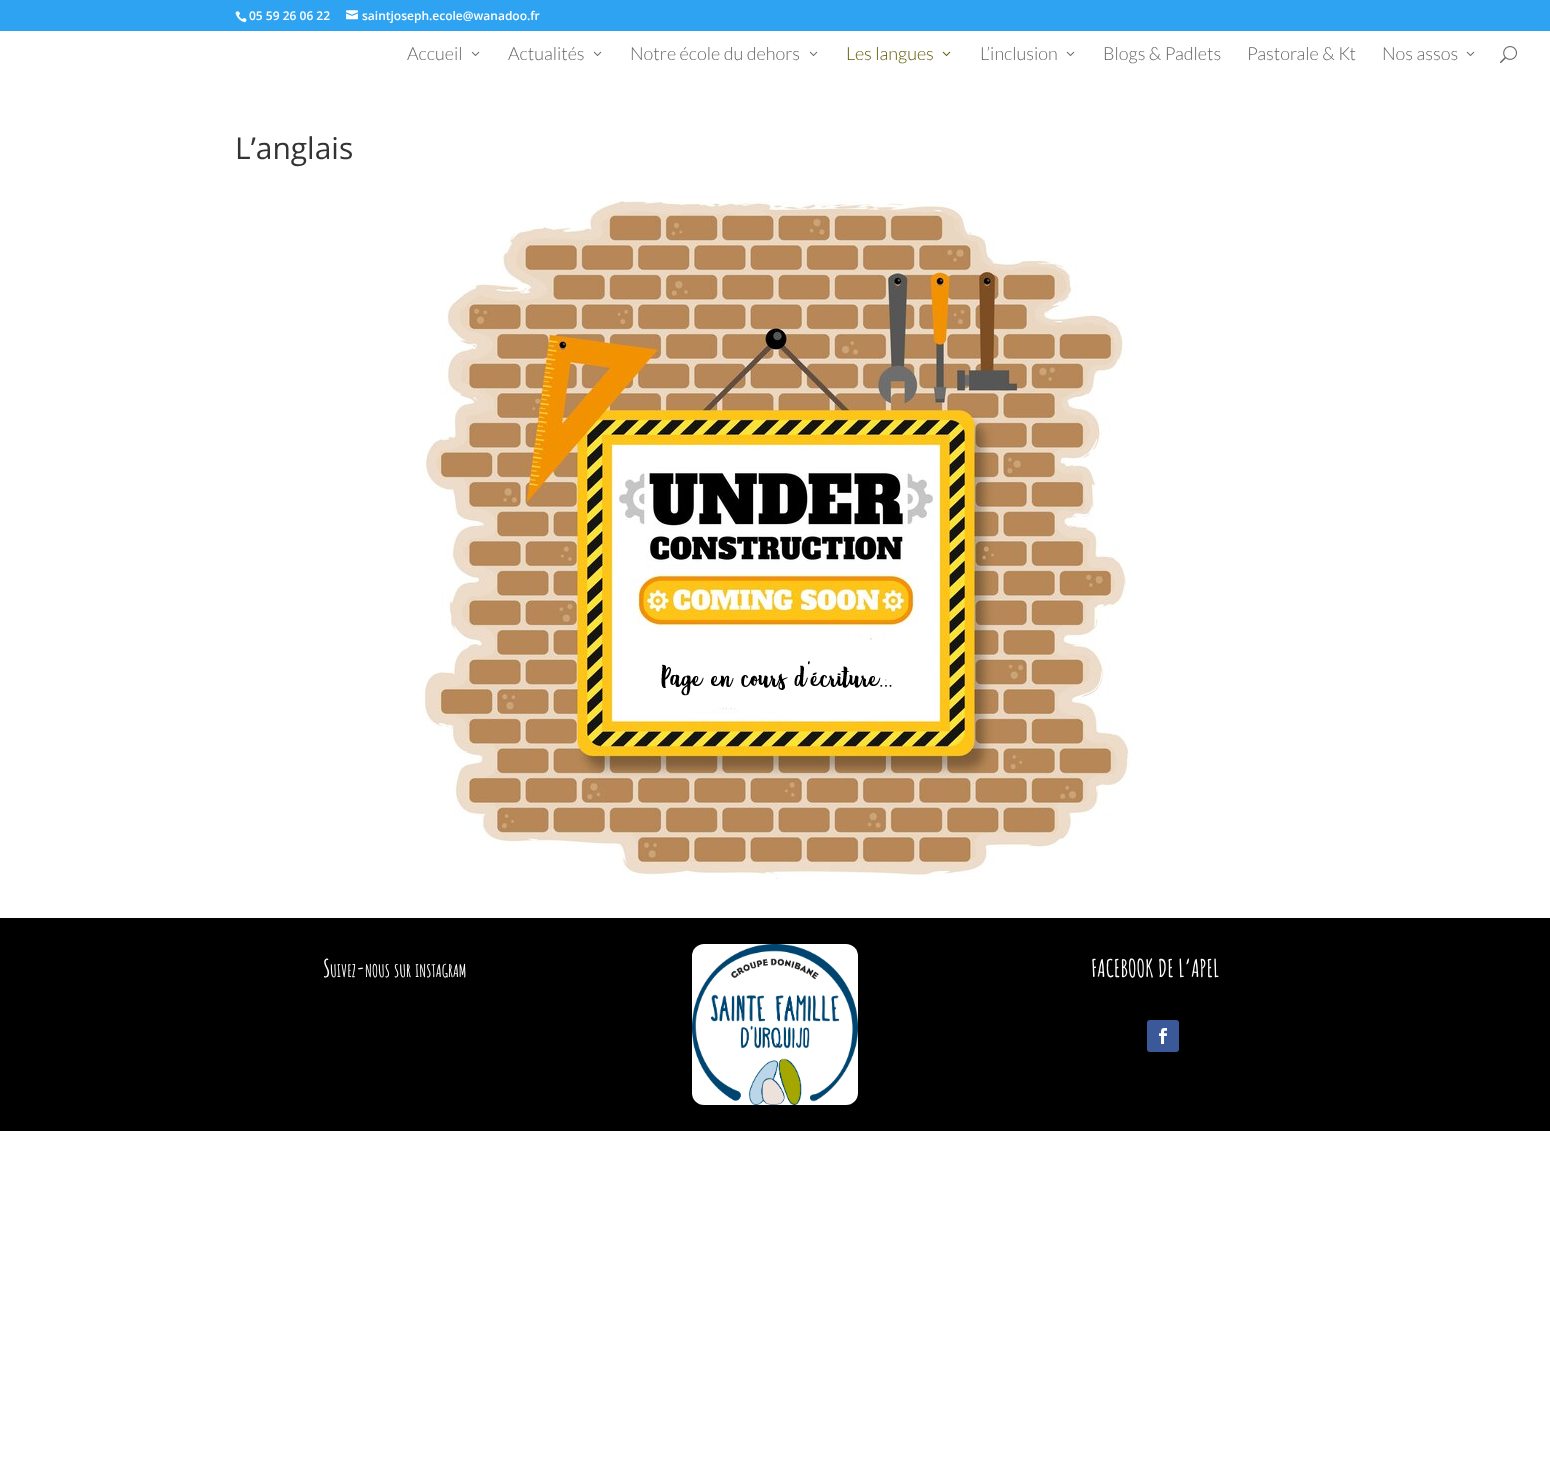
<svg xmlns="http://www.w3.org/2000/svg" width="1550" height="1477">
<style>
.a{font:600 12px Open Sans;fill:#fff}
.b{font:300 18px Lato;fill:#666}
.c{font:300 18px Lato;fill:#605a00}
.d{font:30px Open Sans;fill:#333}
.e{font:bold 24px Amatic SC;fill:#fff}
.f{font:bold 17px Amatic SC;fill:#fff}
</style>
<rect width="100%" height="100%" fill="#fff"/>
<path fill="#2ea3f2" d="M0 0h1550v31H0z"/>
<image href="1.png" x="235" y="11" width="12" height="12"/>
<image href="2.png" x="346" y="10" width="12" height="10"/>
<image href="3.png" x="471" y="51" width="9" height="5"/>
<image href="3.png" x="593" y="51" width="9" height="5"/>
<image href="3.png" x="809" y="51" width="9" height="5"/>
<image href="4.png" x="942" y="51" width="9" height="5"/>
<image href="3.png" x="1066" y="51" width="9" height="5"/>
<image href="3.png" x="1466" y="51" width="9" height="5"/>
<image href="5.png" x="1500" y="46" width="17" height="18"/>
<image href="6.png" x="422" y="200" width="710" height="679"/>
<path fill="#000" d="M0 918h1550v213H0z"/>
<image href="7.png" x="692" y="944" width="166" height="161"/>
<rect fill="#3b5998" x="1147" y="1020" width="32" height="32" rx="3"/>
<image href="8.png" x="1159" y="1028" width="8" height="16"/>
<text class="a" x="249" y="20">05 59 26 06 22</text>
<text class="a" x="362" y="20">saintjoseph.ecole@wanadoo.fr</text>
<text class="b" x="407" y="60">Accueil</text>
<text class="b" x="508" y="60">Actualités</text>
<text class="b" x="630" y="60">Notre école du dehors</text>
<text class="c" x="846" y="60">Les langues</text>
<text class="b" x="980" y="60">L’inclusion</text>
<text class="b" x="1103" y="60">Blogs &amp; Padlets</text>
<text class="b" x="1247" y="60">Pastorale &amp; Kt</text>
<text class="b" x="1382" y="60">Nos assos</text>
<text class="d" x="235" y="159">L’anglais</text>
<text class="e" x="323" y="977">S</text>
<text class="f" x="330" y="977">UIVEZ</text>
<text class="e" x="356" y="977">-</text>
<text class="f" x="365" y="977">NOUS</text>
<text class="f" x="394" y="977">SUR</text>
<text class="f" x="415" y="977">INSTAGRAM</text>
<text class="e" x="1091" y="977">FACEBOOK DE L’APEL</text>
</svg>
